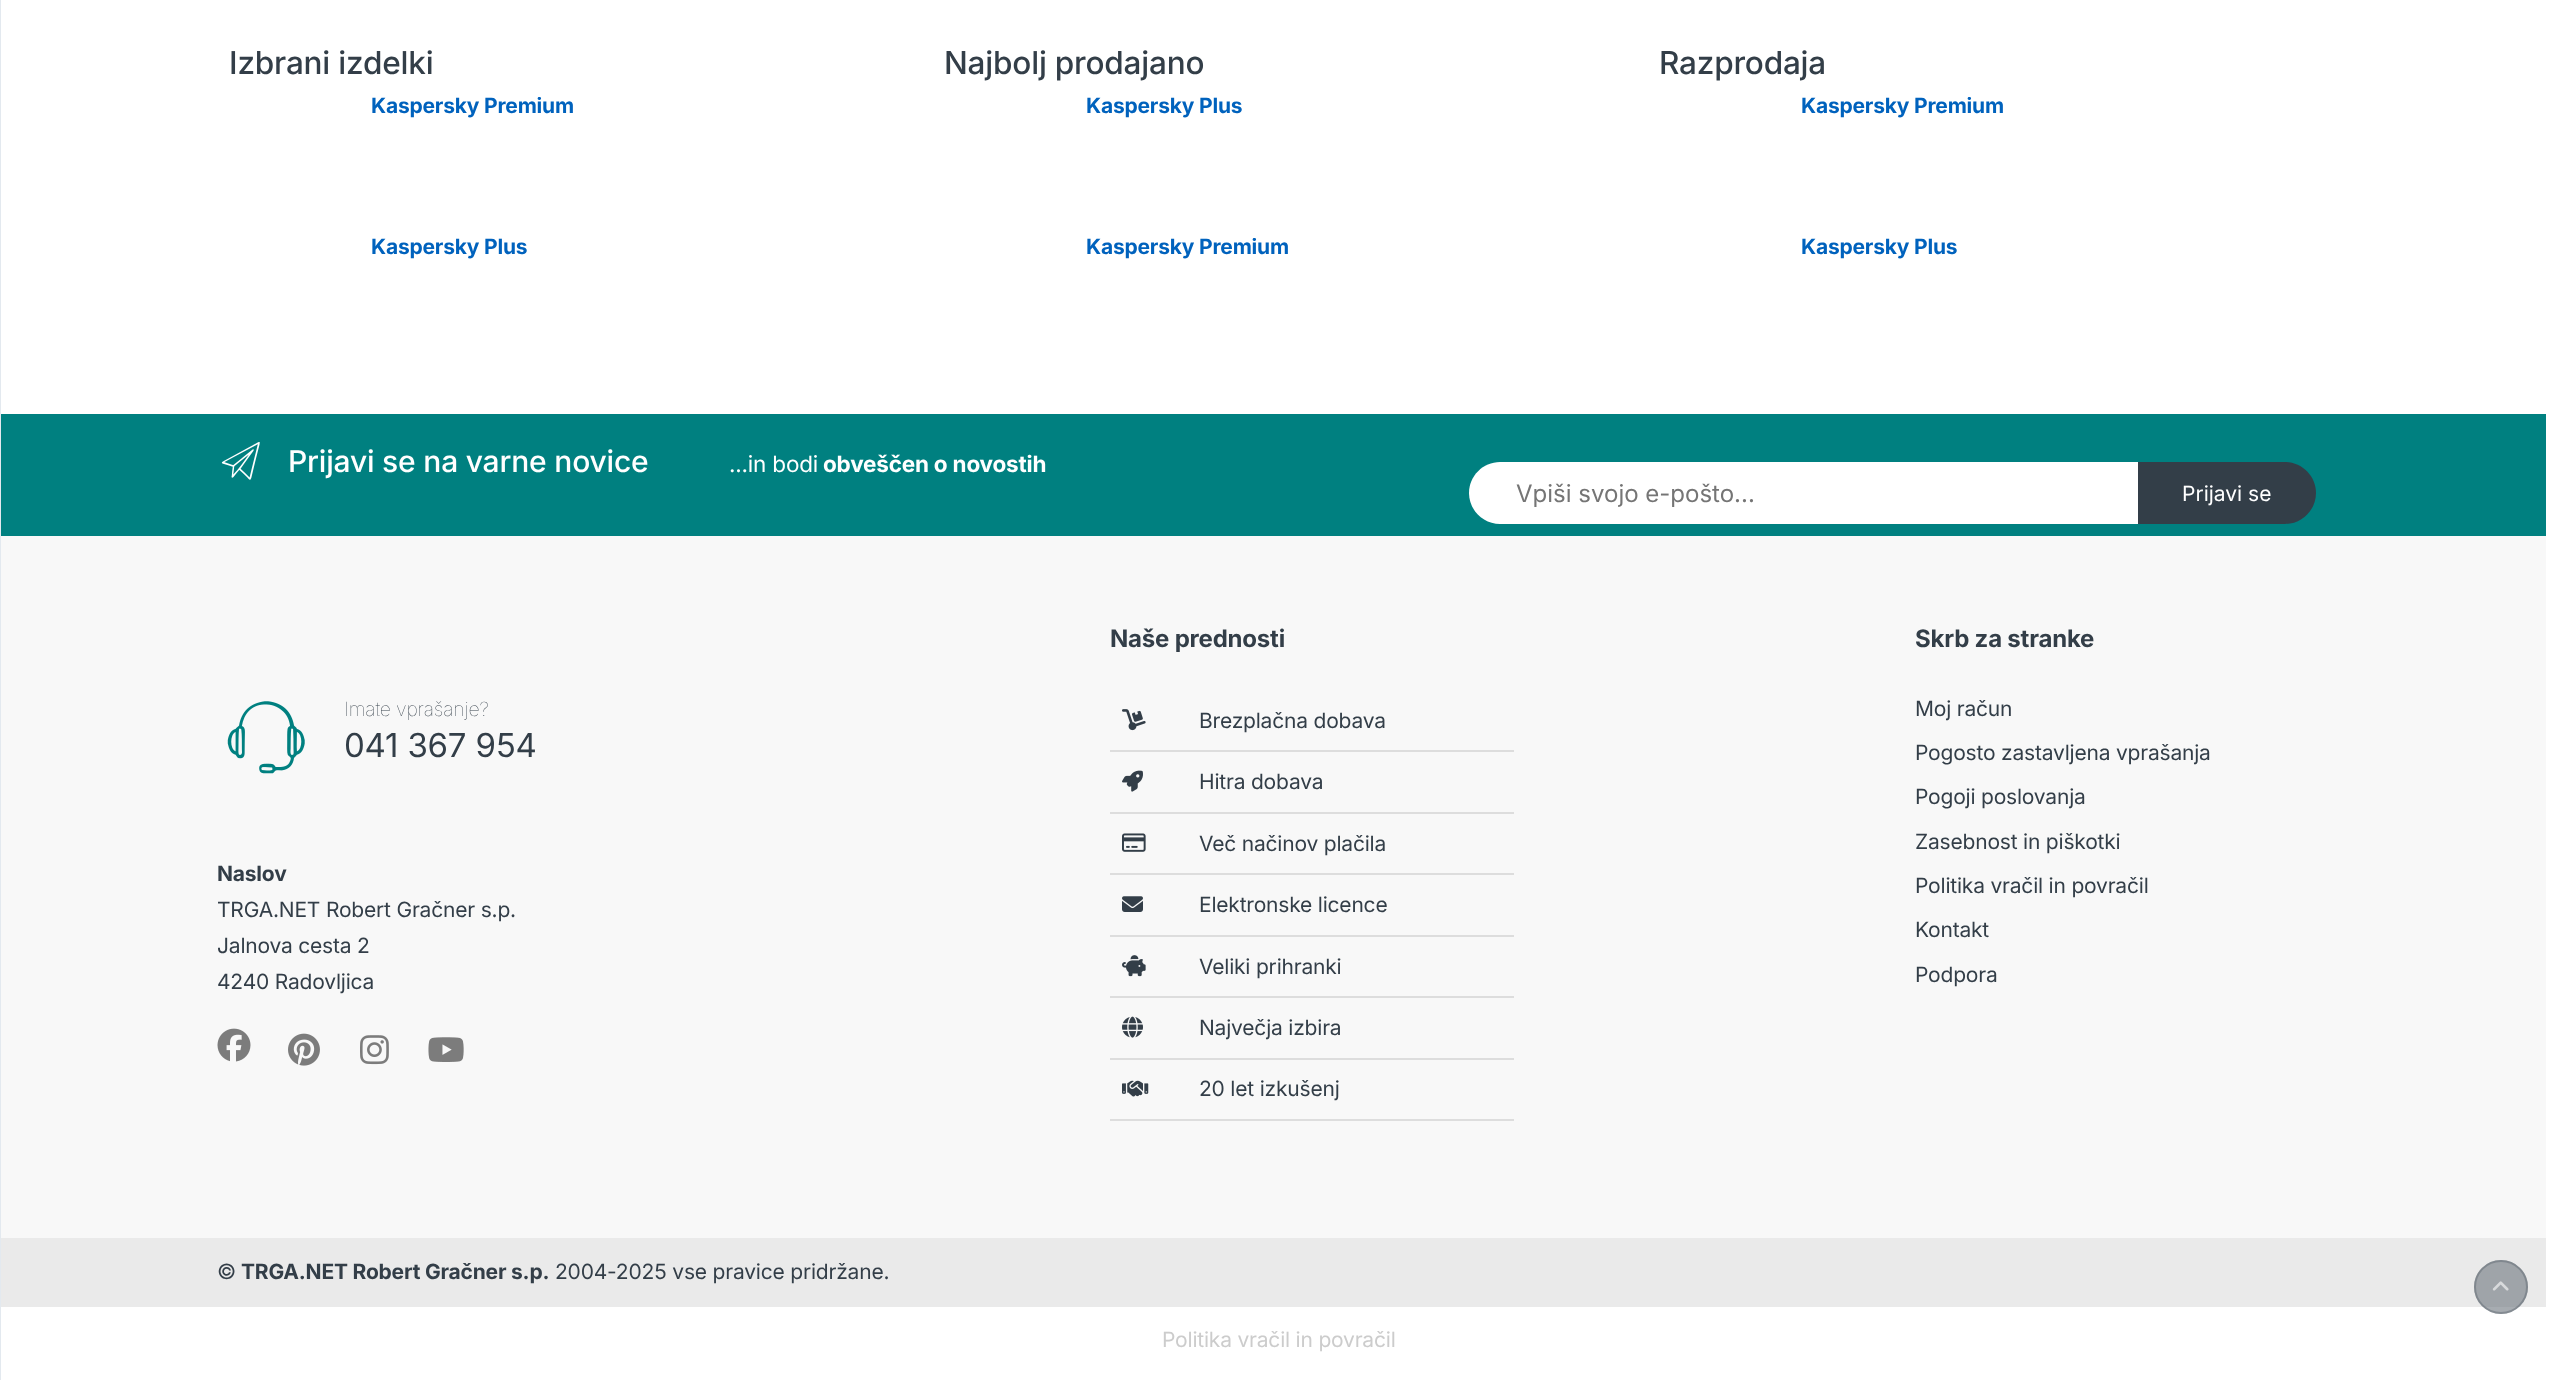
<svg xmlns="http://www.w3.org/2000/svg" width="2557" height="1380">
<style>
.a{font:500 31.5px Inter;letter-spacing:-0.2px;fill:#333e48}
.b{font:bold 21px Inter;letter-spacing:-0.2px;fill:#0062bd}
.c{font:500 30px Inter;letter-spacing:-0.2px;fill:#fff}
.d{font:22.5px Inter;letter-spacing:-0.2px;fill:#fff}
.e{font:bold 22.5px Inter;letter-spacing:-0.2px;fill:#fff}
.f{font:24px Inter;fill:#757575}
.g{font:21px Inter;fill:#fff}
.h{font:100 19.5px Inter;letter-spacing:-0.2px;fill:#333e48}
.i{font:33px Inter;letter-spacing:-0.2px;fill:#333e48}
.j{font:bold 21px Inter;letter-spacing:-0.2px;fill:#333e48}
.k{font:21px Inter;letter-spacing:-0.2px;fill:#333e48}
.l{font:bold 24px Inter;letter-spacing:-0.2px;fill:#333e48}
.m{font:21px Inter;letter-spacing:-0.2px;fill:#ccc}
</style>
<rect width="100%" height="100%" fill="#fff"/>
<path fill="#e3e9ef" d="M0 0h1v1380H0z"/>
<path fill="#008080" d="M1 414h2545v122H1z"/>
<image href="1.png" x="221" y="442" width="39" height="38"/>
<path fill="#fff" d="M1500 462h638v62h-638c-17 0-31-14-31-31c0-17 14-31 31-31z"/>
<path fill="#333e48" d="M2138 462h147c17 0 31 14 31 31c0 17-14 31-31 31h-147z"/>
<path fill="#f8f8f8" d="M1 536h2545v702H1z"/>
<image href="2.png" x="227" y="701" width="78" height="73"/>
<image href="3.png" x="217" y="1028" width="34" height="34"/>
<image href="4.png" x="288" y="1033" width="32" height="33"/>
<image href="5.png" x="360" y="1035" width="29" height="30"/>
<image href="6.png" x="428" y="1037" width="36" height="25"/>
<image href="7.png" x="1122" y="709" width="24" height="22"/>
<path fill="#ddd" d="M1110 750h404v2H1110z"/>
<image href="8.png" x="1122" y="770" width="21" height="22"/>
<path fill="#ddd" d="M1110 812h404v2H1110z"/>
<image href="9.png" x="1122" y="833" width="24" height="19"/>
<path fill="#ddd" d="M1110 873h404v2H1110z"/>
<image href="10.png" x="1122" y="896" width="21" height="16"/>
<path fill="#ddd" d="M1110 935h404v2H1110z"/>
<image href="11.png" x="1122" y="955" width="24" height="22"/>
<path fill="#ddd" d="M1110 996h404v2H1110z"/>
<image href="12.png" x="1122" y="1016" width="21" height="22"/>
<path fill="#ddd" d="M1110 1058h404v2H1110z"/>
<image href="13.png" x="1122" y="1080" width="27" height="17"/>
<path fill="#ddd" d="M1110 1119h404v2H1110z"/>
<path fill="#eaeaea" d="M1 1238h2545v69H1z"/>
<circle fill="#6c757d99" cx="2501" cy="1287" r="27"/>
<circle fill="none" stroke="#6c757d99" stroke-width="2" cx="2501" cy="1287" r="26"/>
<image href="14.png" x="2492" y="1281" width="17" height="10"/>
<text class="a" x="229" y="74">Izbrani izdelki</text>
<text class="b" x="371" y="113">Kaspersky Premium</text>
<text class="b" x="371" y="254">Kaspersky Plus</text>
<text class="a" x="944" y="74">Najbolj prodajano</text>
<text class="b" x="1086" y="113">Kaspersky Plus</text>
<text class="b" x="1086" y="254">Kaspersky Premium</text>
<text class="a" x="1659" y="74">Razprodaja</text>
<text class="b" x="1801" y="113">Kaspersky Premium</text>
<text class="b" x="1801" y="254">Kaspersky Plus</text>
<text class="c" x="288" y="472">Prijavi se na varne novice</text>
<text class="d" x="729" y="472">...in bodi</text>
<text class="e" x="823" y="472">obveščen o novostih</text>
<text class="f" x="1516" y="502">Vpiši svojo e-pošto...</text>
<text class="g" x="2182" y="501">Prijavi se</text>
<text class="h" x="344" y="716">Imate vprašanje?</text>
<text class="i" x="344" y="757">041 367 954</text>
<text class="j" x="217" y="881">Naslov</text>
<text class="k" x="217" y="917">TRGA.NET Robert Gračner s.p.</text>
<text class="k" x="217" y="953">Jalnova cesta 2</text>
<text class="k" x="217" y="989">4240 Radovljica</text>
<text class="l" x="1110" y="647">Naše prednosti</text>
<text class="k" x="1199" y="728">Brezplačna dobava</text>
<text class="k" x="1199" y="789">Hitra dobava</text>
<text class="k" x="1199" y="851">Več načinov plačila</text>
<text class="k" x="1199" y="912">Elektronske licence</text>
<text class="k" x="1199" y="974">Veliki prihranki</text>
<text class="k" x="1199" y="1035">Največja izbira</text>
<text class="k" x="1199" y="1096">20 let izkušenj</text>
<text class="l" x="1915" y="647">Skrb za stranke</text>
<text class="k" x="1915" y="716">Moj račun</text>
<text class="k" x="1915" y="760">Pogosto zastavljena vprašanja</text>
<text class="k" x="1915" y="804">Pogoji poslovanja</text>
<text class="k" x="1915" y="849">Zasebnost in piškotki</text>
<text class="k" x="1915" y="893">Politika vračil in povračil</text>
<text class="k" x="1915" y="937">Kontakt</text>
<text class="k" x="1915" y="982">Podpora</text>
<text class="k" x="217" y="1279">©</text>
<text class="j" x="241" y="1279">TRGA.NET Robert Gračner s.p.</text>
<text class="k" x="555" y="1279">2004-2025 vse pravice pridržane.</text>
<text class="m" x="1162" y="1347">Politika vračil in povračil</text>
</svg>
